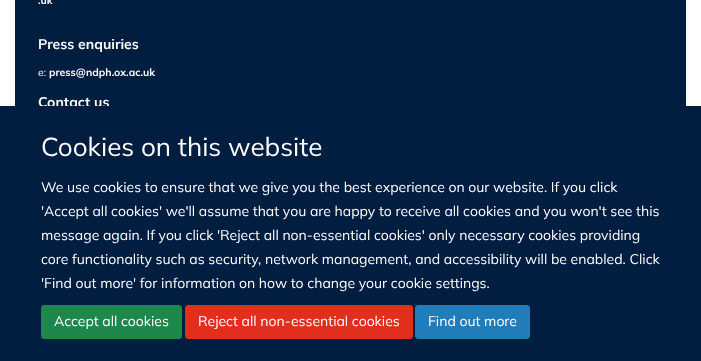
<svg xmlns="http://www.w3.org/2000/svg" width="701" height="361">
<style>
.a{font:bold 10.5px Mulish;fill:#fff}
.b{font:bold 14px Mulish;fill:#fff}
.c{font:10.5px Mulish;fill:#fff}
.d{font:26px Mulish;fill:#fff}
.e{font:14px Mulish;fill:#fff}
</style>
<rect width="100%" height="100%" fill="#fff"/>
<path fill="#011e41" d="M15 0h671v106H15z"/>
<text class="a" x="38" y="4">.uk</text>
<text class="b" x="38" y="49">Press enquiries</text>
<text class="c" x="38" y="76">e:</text>
<text class="a" x="49" y="76">press@ndph.ox.ac.uk</text>
<text class="b" x="38" y="107">Contact us</text>
<path fill="#011e41" d="M0 106h701v255H0z"/>
<text class="d" x="41" y="156">Cookies on this website</text>
<text class="e" x="41" y="192">We use cookies to ensure that we give you the best experience on our website. If you click</text>
<text class="e" x="41" y="216">'Accept all cookies' we'll assume that you are happy to receive all cookies and you won't see this</text>
<text class="e" x="41" y="240">message again. If you click 'Reject all non-essential cookies' only necessary cookies providing</text>
<text class="e" x="41" y="264">core functionality such as security, network management, and accessibility will be enabled. Click</text>
<text class="e" x="41" y="288">'Find out more' for information on how to change your cookie settings.</text>
<rect fill="#1e874b" stroke="#1e874b" x="41.5" y="305.5" width="140" height="33" rx="2.5"/>
<text class="e" x="54" y="326">Accept all cookies</text>
<rect fill="#e22e1c" stroke="#e22e1c" x="185.5" y="305.5" width="227" height="33" rx="2.5"/>
<text class="e" x="198" y="326">Reject all non-essential cookies</text>
<rect fill="#217cba" stroke="#217cba" x="415.5" y="305.5" width="114" height="33" rx="2.5"/>
<text class="e" x="428" y="326">Find out more</text>
</svg>
